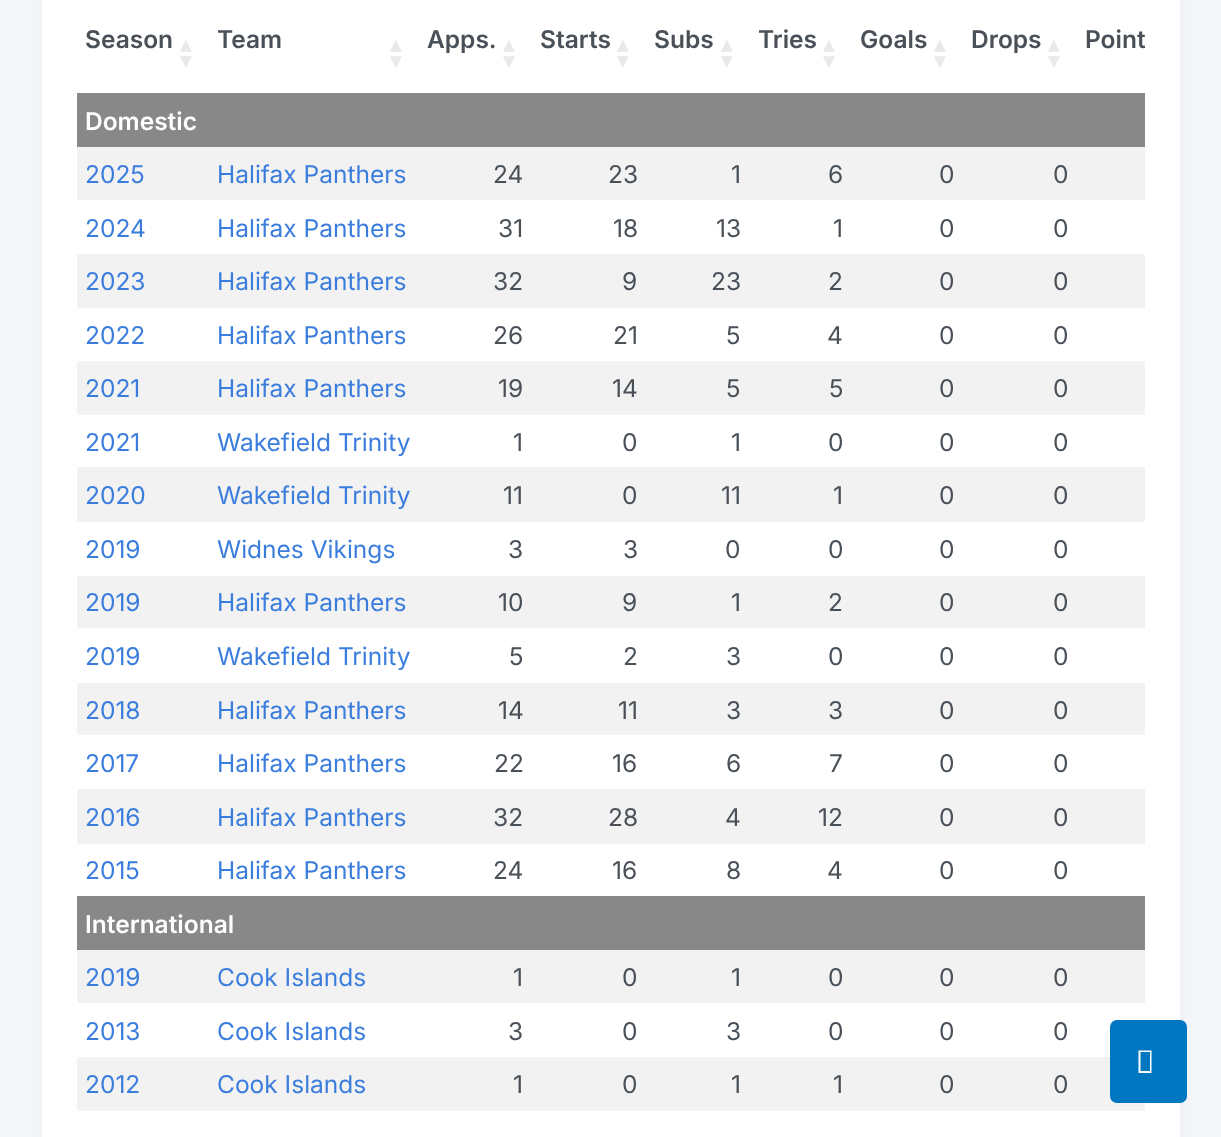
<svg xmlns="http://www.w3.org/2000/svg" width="1221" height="1137">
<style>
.a{font:600 24.5px Inter;fill:#495057}
.b{font:bold 22px DejaVu Sans;fill:#e8e9ea}
.c{font:600 24.5px Inter;fill:#fefefe}
.d{font:24.5px Inter;fill:#3b7ddd}
.e{font:24.5px Inter;fill:#495057}
</style>
<rect width="100%" height="100%" fill="#f5f7fb"/>
<rect fill="#2125290d" filter="blur(12px)" x="42" y="-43" width="1138" height="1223" rx="7"/>
<path fill="#fff" d="M42 0h1138v1137H42z"/>
<path fill="#888" d="M77 93h1068v54H77z"/>
<path fill="#f2f2f2" d="M77 147h1068v53H77z"/>
<path fill="#f2f2f2" d="M77 254h1068v54H77z"/>
<path fill="#f2f2f2" d="M77 361h1068v54H77z"/>
<path fill="#f2f2f2" d="M77 467h1068v55H77z"/>
<path fill="#f2f2f2" d="M77 576h1068v52H77z"/>
<path fill="#f2f2f2" d="M77 683h1068v52H77z"/>
<path fill="#f2f2f2" d="M77 789h1068v55H77z"/>
<path fill="#888" d="M77 896h1068v54H77z"/>
<path fill="#f2f2f2" d="M77 950h1068v53H77z"/>
<path fill="#f2f2f2" d="M77 1057h1068v54H77z"/>
<rect fill="#0077c0" x="1110" y="1020" width="77" height="83" rx="7"/>
<path fill="#fff" d="M1138.5 1073v-22.5h13v22.5zm2-2h9.5v-19h-9.5z"/>
<text class="a" x="85" y="48">Season</text>
<text class="b" x="180" y="52">▴</text>
<text class="b" x="180" y="68">▾</text>
<text class="a" x="217" y="48">Team</text>
<text class="b" x="390" y="52">▴</text>
<text class="b" x="390" y="68">▾</text>
<text class="a" x="427" y="48">Apps.</text>
<text class="b" x="503" y="52">▴</text>
<text class="b" x="503" y="68">▾</text>
<text class="a" x="540" y="48">Starts</text>
<text class="b" x="617" y="52">▴</text>
<text class="b" x="617" y="68">▾</text>
<text class="a" x="654" y="48">Subs</text>
<text class="b" x="721" y="52">▴</text>
<text class="b" x="721" y="68">▾</text>
<text class="a" x="758" y="48">Tries</text>
<text class="b" x="823" y="52">▴</text>
<text class="b" x="823" y="68">▾</text>
<text class="a" x="860" y="48">Goals</text>
<text class="b" x="934" y="52">▴</text>
<text class="b" x="934" y="68">▾</text>
<text class="a" x="971" y="48">Drops</text>
<text class="b" x="1048" y="52">▴</text>
<text class="b" x="1048" y="68">▾</text>
<text class="a" x="1085" y="48">Point</text>
<text class="c" x="85" y="130">Domestic</text>
<text class="d" x="85" y="183">2025</text>
<text class="d" x="217" y="183">Halifax Panthers</text>
<text class="e" x="493" y="183">24</text>
<text class="e" x="608" y="183">23</text>
<text class="e" x="731" y="183">1</text>
<text class="e" x="828" y="183">6</text>
<text class="e" x="939" y="183">0</text>
<text class="e" x="1053" y="183">0</text>
<text class="d" x="85" y="237">2024</text>
<text class="d" x="217" y="237">Halifax Panthers</text>
<text class="e" x="498" y="237">31</text>
<text class="e" x="613" y="237">18</text>
<text class="e" x="716" y="237">13</text>
<text class="e" x="833" y="237">1</text>
<text class="e" x="939" y="237">0</text>
<text class="e" x="1053" y="237">0</text>
<text class="d" x="85" y="290">2023</text>
<text class="d" x="217" y="290">Halifax Panthers</text>
<text class="e" x="493" y="290">32</text>
<text class="e" x="622" y="290">9</text>
<text class="e" x="711" y="290">23</text>
<text class="e" x="828" y="290">2</text>
<text class="e" x="939" y="290">0</text>
<text class="e" x="1053" y="290">0</text>
<text class="d" x="85" y="344">2022</text>
<text class="d" x="217" y="344">Halifax Panthers</text>
<text class="e" x="493" y="344">26</text>
<text class="e" x="613" y="344">21</text>
<text class="e" x="726" y="344">5</text>
<text class="e" x="827" y="344">4</text>
<text class="e" x="939" y="344">0</text>
<text class="e" x="1053" y="344">0</text>
<text class="d" x="85" y="397">2021</text>
<text class="d" x="217" y="397">Halifax Panthers</text>
<text class="e" x="498" y="397">19</text>
<text class="e" x="612" y="397">14</text>
<text class="e" x="726" y="397">5</text>
<text class="e" x="829" y="397">5</text>
<text class="e" x="939" y="397">0</text>
<text class="e" x="1053" y="397">0</text>
<text class="d" x="85" y="451">2021</text>
<text class="d" x="217" y="451">Wakefield Trinity</text>
<text class="e" x="513" y="451">1</text>
<text class="e" x="622" y="451">0</text>
<text class="e" x="731" y="451">1</text>
<text class="e" x="828" y="451">0</text>
<text class="e" x="939" y="451">0</text>
<text class="e" x="1053" y="451">0</text>
<text class="d" x="85" y="504">2020</text>
<text class="d" x="217" y="504">Wakefield Trinity</text>
<text class="e" x="503" y="504">11</text>
<text class="e" x="622" y="504">0</text>
<text class="e" x="721" y="504">11</text>
<text class="e" x="833" y="504">1</text>
<text class="e" x="939" y="504">0</text>
<text class="e" x="1053" y="504">0</text>
<text class="d" x="85" y="558">2019</text>
<text class="d" x="217" y="558">Widnes Vikings</text>
<text class="e" x="508" y="558">3</text>
<text class="e" x="623" y="558">3</text>
<text class="e" x="725" y="558">0</text>
<text class="e" x="828" y="558">0</text>
<text class="e" x="939" y="558">0</text>
<text class="e" x="1053" y="558">0</text>
<text class="d" x="85" y="611">2019</text>
<text class="d" x="217" y="611">Halifax Panthers</text>
<text class="e" x="498" y="611">10</text>
<text class="e" x="622" y="611">9</text>
<text class="e" x="731" y="611">1</text>
<text class="e" x="828" y="611">2</text>
<text class="e" x="939" y="611">0</text>
<text class="e" x="1053" y="611">0</text>
<text class="d" x="85" y="665">2019</text>
<text class="d" x="217" y="665">Wakefield Trinity</text>
<text class="e" x="509" y="665">5</text>
<text class="e" x="623" y="665">2</text>
<text class="e" x="726" y="665">3</text>
<text class="e" x="828" y="665">0</text>
<text class="e" x="939" y="665">0</text>
<text class="e" x="1053" y="665">0</text>
<text class="d" x="85" y="719">2018</text>
<text class="d" x="217" y="719">Halifax Panthers</text>
<text class="e" x="498" y="719">14</text>
<text class="e" x="618" y="719">11</text>
<text class="e" x="726" y="719">3</text>
<text class="e" x="828" y="719">3</text>
<text class="e" x="939" y="719">0</text>
<text class="e" x="1053" y="719">0</text>
<text class="d" x="85" y="772">2017</text>
<text class="d" x="217" y="772">Halifax Panthers</text>
<text class="e" x="494" y="772">22</text>
<text class="e" x="612" y="772">16</text>
<text class="e" x="726" y="772">6</text>
<text class="e" x="829" y="772">7</text>
<text class="e" x="939" y="772">0</text>
<text class="e" x="1053" y="772">0</text>
<text class="d" x="85" y="826">2016</text>
<text class="d" x="217" y="826">Halifax Panthers</text>
<text class="e" x="493" y="826">32</text>
<text class="e" x="608" y="826">28</text>
<text class="e" x="725" y="826">4</text>
<text class="e" x="818" y="826">12</text>
<text class="e" x="939" y="826">0</text>
<text class="e" x="1053" y="826">0</text>
<text class="d" x="85" y="879">2015</text>
<text class="d" x="217" y="879">Halifax Panthers</text>
<text class="e" x="493" y="879">24</text>
<text class="e" x="612" y="879">16</text>
<text class="e" x="726" y="879">8</text>
<text class="e" x="827" y="879">4</text>
<text class="e" x="939" y="879">0</text>
<text class="e" x="1053" y="879">0</text>
<text class="c" x="85" y="933">International</text>
<text class="d" x="85" y="986">2019</text>
<text class="d" x="217" y="986">Cook Islands</text>
<text class="e" x="513" y="986">1</text>
<text class="e" x="622" y="986">0</text>
<text class="e" x="731" y="986">1</text>
<text class="e" x="828" y="986">0</text>
<text class="e" x="939" y="986">0</text>
<text class="e" x="1053" y="986">0</text>
<text class="d" x="85" y="1040">2013</text>
<text class="d" x="217" y="1040">Cook Islands</text>
<text class="e" x="508" y="1040">3</text>
<text class="e" x="622" y="1040">0</text>
<text class="e" x="726" y="1040">3</text>
<text class="e" x="828" y="1040">0</text>
<text class="e" x="939" y="1040">0</text>
<text class="e" x="1053" y="1040">0</text>
<text class="d" x="85" y="1093">2012</text>
<text class="d" x="217" y="1093">Cook Islands</text>
<text class="e" x="513" y="1093">1</text>
<text class="e" x="622" y="1093">0</text>
<text class="e" x="731" y="1093">1</text>
<text class="e" x="833" y="1093">1</text>
<text class="e" x="939" y="1093">0</text>
<text class="e" x="1053" y="1093">0</text>
</svg>
